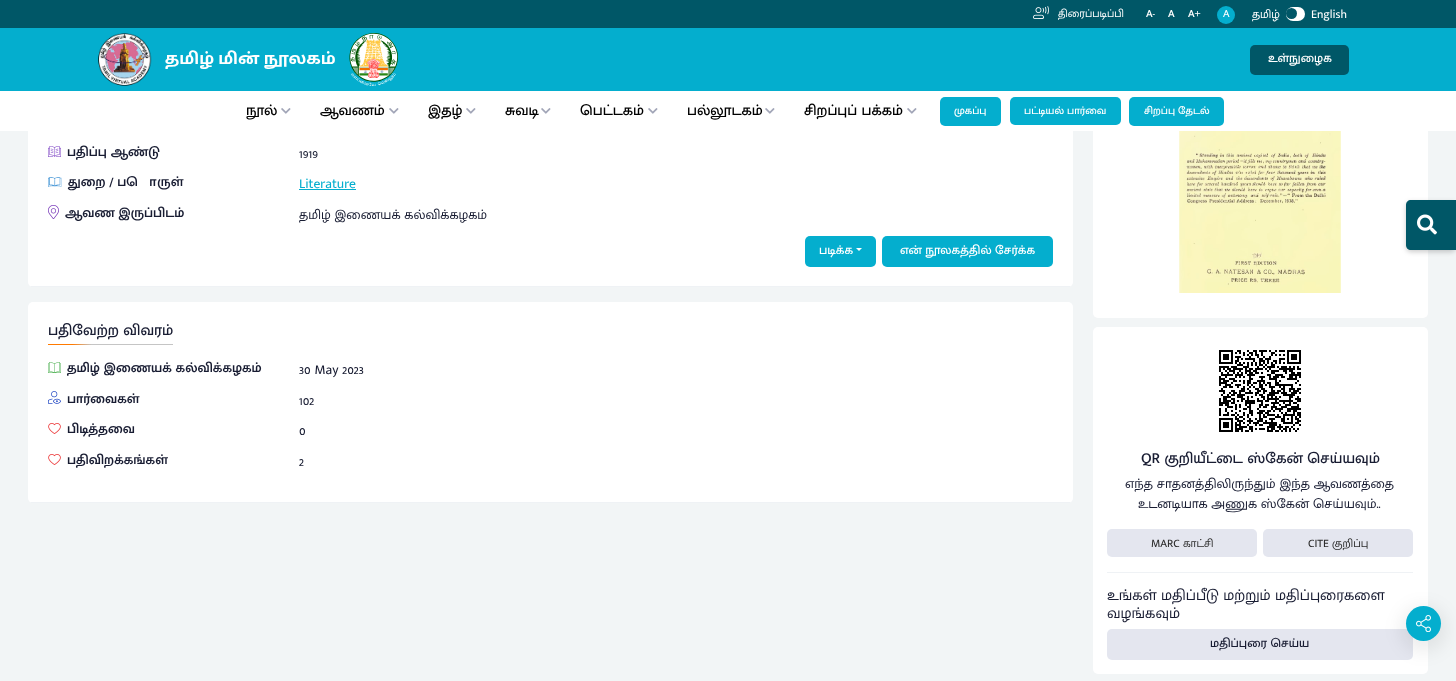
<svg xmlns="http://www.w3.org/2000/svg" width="1456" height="681">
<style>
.a{font:11px Mukta Malar;fill:#fff}
.b{font:500 11px Mukta Malar;fill:#fff}
.c{font:12px Mukta Malar;fill:#fff}
.d{font:500 12.5px Mukta Malar;fill:#fff}
.e{font:500 15px Mukta Malar;fill:#000}
.f{font:500 10.75px Mukta Malar;fill:#fff}
.g{font:600 13.6px Mukta Malar;fill:#181c32}
.h{font:13.6px Mukta Malar;fill:#181c32}
.i{font:13.6px Mukta Malar;fill:#04aece}
.j{font:500 15.4px Mukta Malar;fill:#181c32}
.k{font:11.5px Mukta Malar;fill:#2c2c2c}
.l{font:15.4px Mukta Malar;fill:#181c32}
.m{font:500 12.5px Mukta Malar;fill:#181c32}
</style>
<defs>
<linearGradient id="g1" gradientUnits="userSpaceOnUse" x1="83" y1="313" x2="138" y2="376"><stop offset="0.2" stop-color="#ff7a00"/><stop offset="0.35" stop-color="#c5c5c5"/></linearGradient>
</defs>
<rect width="100%" height="100%" fill="#f2f5f6"/>
<rect fill="#fff" x="28" y="-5" width="1045" height="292" rx="5"/>
<rect fill="#fff" x="1093" y="-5" width="335" height="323" rx="5"/>
<path fill="#fff" d="M0 91h1456v40H0z"/>
<path fill="#005767" d="M0 0h1456v28H0z"/>
<image href="1.png" x="1033" y="6" width="16" height="13"/>
<circle fill="#04aece" cx="1226" cy="15" r="9"/>
<rect fill="#fff" x="1286" y="7" width="19" height="14" rx="7"/>
<circle fill="#005767" cx="1291.5" cy="13.5" r="5.5"/>
<path fill="#04aece" d="M0 28h1456v63H0z"/>
<image href="2.png" x="98" y="33" width="300" height="53"/>
<rect fill="#005767" x="1250" y="45" width="99" height="30" rx="5"/>
<image href="3.png" x="281" y="108" width="10" height="6"/>
<image href="3.png" x="389" y="108" width="10" height="6"/>
<image href="3.png" x="466" y="108" width="10" height="6"/>
<image href="3.png" x="541" y="108" width="10" height="6"/>
<image href="3.png" x="648" y="108" width="10" height="6"/>
<image href="3.png" x="765" y="108" width="10" height="6"/>
<image href="3.png" x="907" y="108" width="10" height="6"/>
<rect fill="#04aece" x="940" y="97" width="61" height="29" rx="5"/>
<rect fill="#04aece" x="1010" y="97" width="111" height="28" rx="5"/>
<rect fill="#04aece" x="1129" y="97" width="95" height="29" rx="5"/>
<rect fill="#00000033" filter="blur(2.5px)" x="1406" y="202" width="50" height="50" rx="5"/>
<path fill="#005767" d="M1411 200h45v50h-45c-3 0-5-2-5-5v-40c0-3 2-5 5-5z"/>
<image href="4.png" x="1417" y="214" width="20" height="21"/>
<path fill="#eff2f5" d="M31 286h1039v1H31z"/>
<image href="5.png" x="48" y="146" width="13" height="11"/>
<image href="6.png" x="48" y="177" width="14" height="10"/>
<path fill="#04aece" d="M299 189h57v1H299z"/>
<image href="7.png" x="48" y="205" width="11" height="14"/>
<rect fill="#04aece" x="805" y="236" width="71" height="31" rx="5"/>
<path fill="#fff" d="M856 248h6l-3 3z"/>
<rect fill="#04aece" x="882" y="236" width="171" height="31" rx="5"/>
<rect fill="#fff" x="28" y="302" width="1045" height="201" rx="5"/>
<path fill="#eff2f5" d="M31 502h1039v1H31z"/>
<path fill="url(#g1)" d="M48 344h125v1H48z"/>
<image href="8.png" x="48" y="362" width="13" height="11"/>
<image href="9.png" x="48" y="391" width="13" height="13"/>
<image href="10.png" x="48" y="423" width="13" height="11"/>
<image href="10.png" x="48" y="454" width="13" height="11"/>
<image href="11.png" x="1179" y="131" width="162" height="162"/>
<rect fill="#fff" x="1093" y="327" width="335" height="347" rx="5"/>
<image href="12.png" x="1219" y="350" width="82" height="82"/>
<rect fill="#e4e6ef" x="1107" y="529" width="150" height="28" rx="5"/>
<rect fill="#e4e6ef" x="1263" y="529" width="150" height="28" rx="5"/>
<path fill="#eff2f5" d="M1107 572h306v1H1107z"/>
<rect fill="#e4e6ef" x="1107" y="629" width="306" height="31" rx="5"/>
<rect fill="#00000012" filter="blur(8.5px)" x="1400" y="606" width="47" height="46" rx="23"/>
<circle fill="#04aece" cx="1423.5" cy="623.5" r="17.5"/>
<image href="13.png" x="1416" y="615" width="15" height="17"/>
<text class="a" x="1058" y="17">திரைப்படிப்பி</text>
<text class="b" x="1146" y="17">A-</text>
<text class="b" x="1168" y="17">A</text>
<text class="b" x="1188" y="17">A+</text>
<text class="a" x="1223" y="17">A</text>
<text class="c" x="1252" y="18">தமிழ்</text>
<text class="c" x="1311" y="18">English</text>
<text class="d" x="1268" y="62">உள்நுழைக</text>
<text class="e" x="246" y="115">நூல்</text>
<text class="e" x="320" y="115">ஆவணம்</text>
<text class="e" x="428" y="115">இதழ்</text>
<text class="e" x="505" y="115">சுவடி</text>
<text class="e" x="580" y="115">பெட்டகம்</text>
<text class="e" x="687" y="115">பல்லூடகம்</text>
<text class="e" x="804" y="115">சிறப்புப் பக்கம்</text>
<text class="f" x="954" y="114">முகப்பு</text>
<text class="f" x="1024" y="114">பட்டியல் பார்வை</text>
<text class="f" x="1144" y="114">சிறப்பு தேடல்</text>
<text class="g" x="67" y="156">பதிப்பு ஆண்டு</text>
<text class="h" x="299" y="158">1919</text>
<text class="g" x="68" y="186">துறை / பொருள்</text>
<text class="i" x="299" y="188">Literature</text>
<text class="g" x="65" y="217">ஆவண இருப்பிடம்</text>
<text class="h" x="299" y="219">தமிழ் இணையக் கல்விக்கழகம்</text>
<text class="d" x="819" y="254">படிக்க</text>
<text class="d" x="900" y="254">என் நூலகத்தில் சேர்க்க</text>
<text class="j" x="48" y="335">பதிவேற்ற விவரம்</text>
<text class="g" x="67" y="372">தமிழ் இணையக் கல்விக்கழகம்</text>
<text class="h" x="299" y="374">30 May 2023</text>
<text class="g" x="67" y="403">பார்வைகள்</text>
<text class="h" x="299" y="405">102</text>
<text class="g" x="67" y="433">பிடித்தவை</text>
<text class="h" x="299" y="435">0</text>
<text class="g" x="67" y="464">பதிவிறக்கங்கள்</text>
<text class="h" x="299" y="466">2</text>
<text class="j" x="1141" y="463">QR குறியீட்டை ஸ்கேன் செய்யவும்</text>
<text class="h" x="1125" y="488">எந்த சாதனத்திலிருந்தும் இந்த ஆவணத்தை</text>
<text class="h" x="1138" y="508">உடனடியாக அணுக ஸ்கேன் செய்யவும்..</text>
<text class="k" x="1151" y="547">MARC காட்சி</text>
<text class="k" x="1308" y="547">CITE குறிப்பு</text>
<text class="l" x="1107" y="600">உங்கள் மதிப்பீடு மற்றும் மதிப்புரைகளை</text>
<text class="l" x="1107" y="618">வழங்கவும்</text>
<text class="m" x="1210" y="647">மதிப்புரை செய்ய</text>
</svg>
